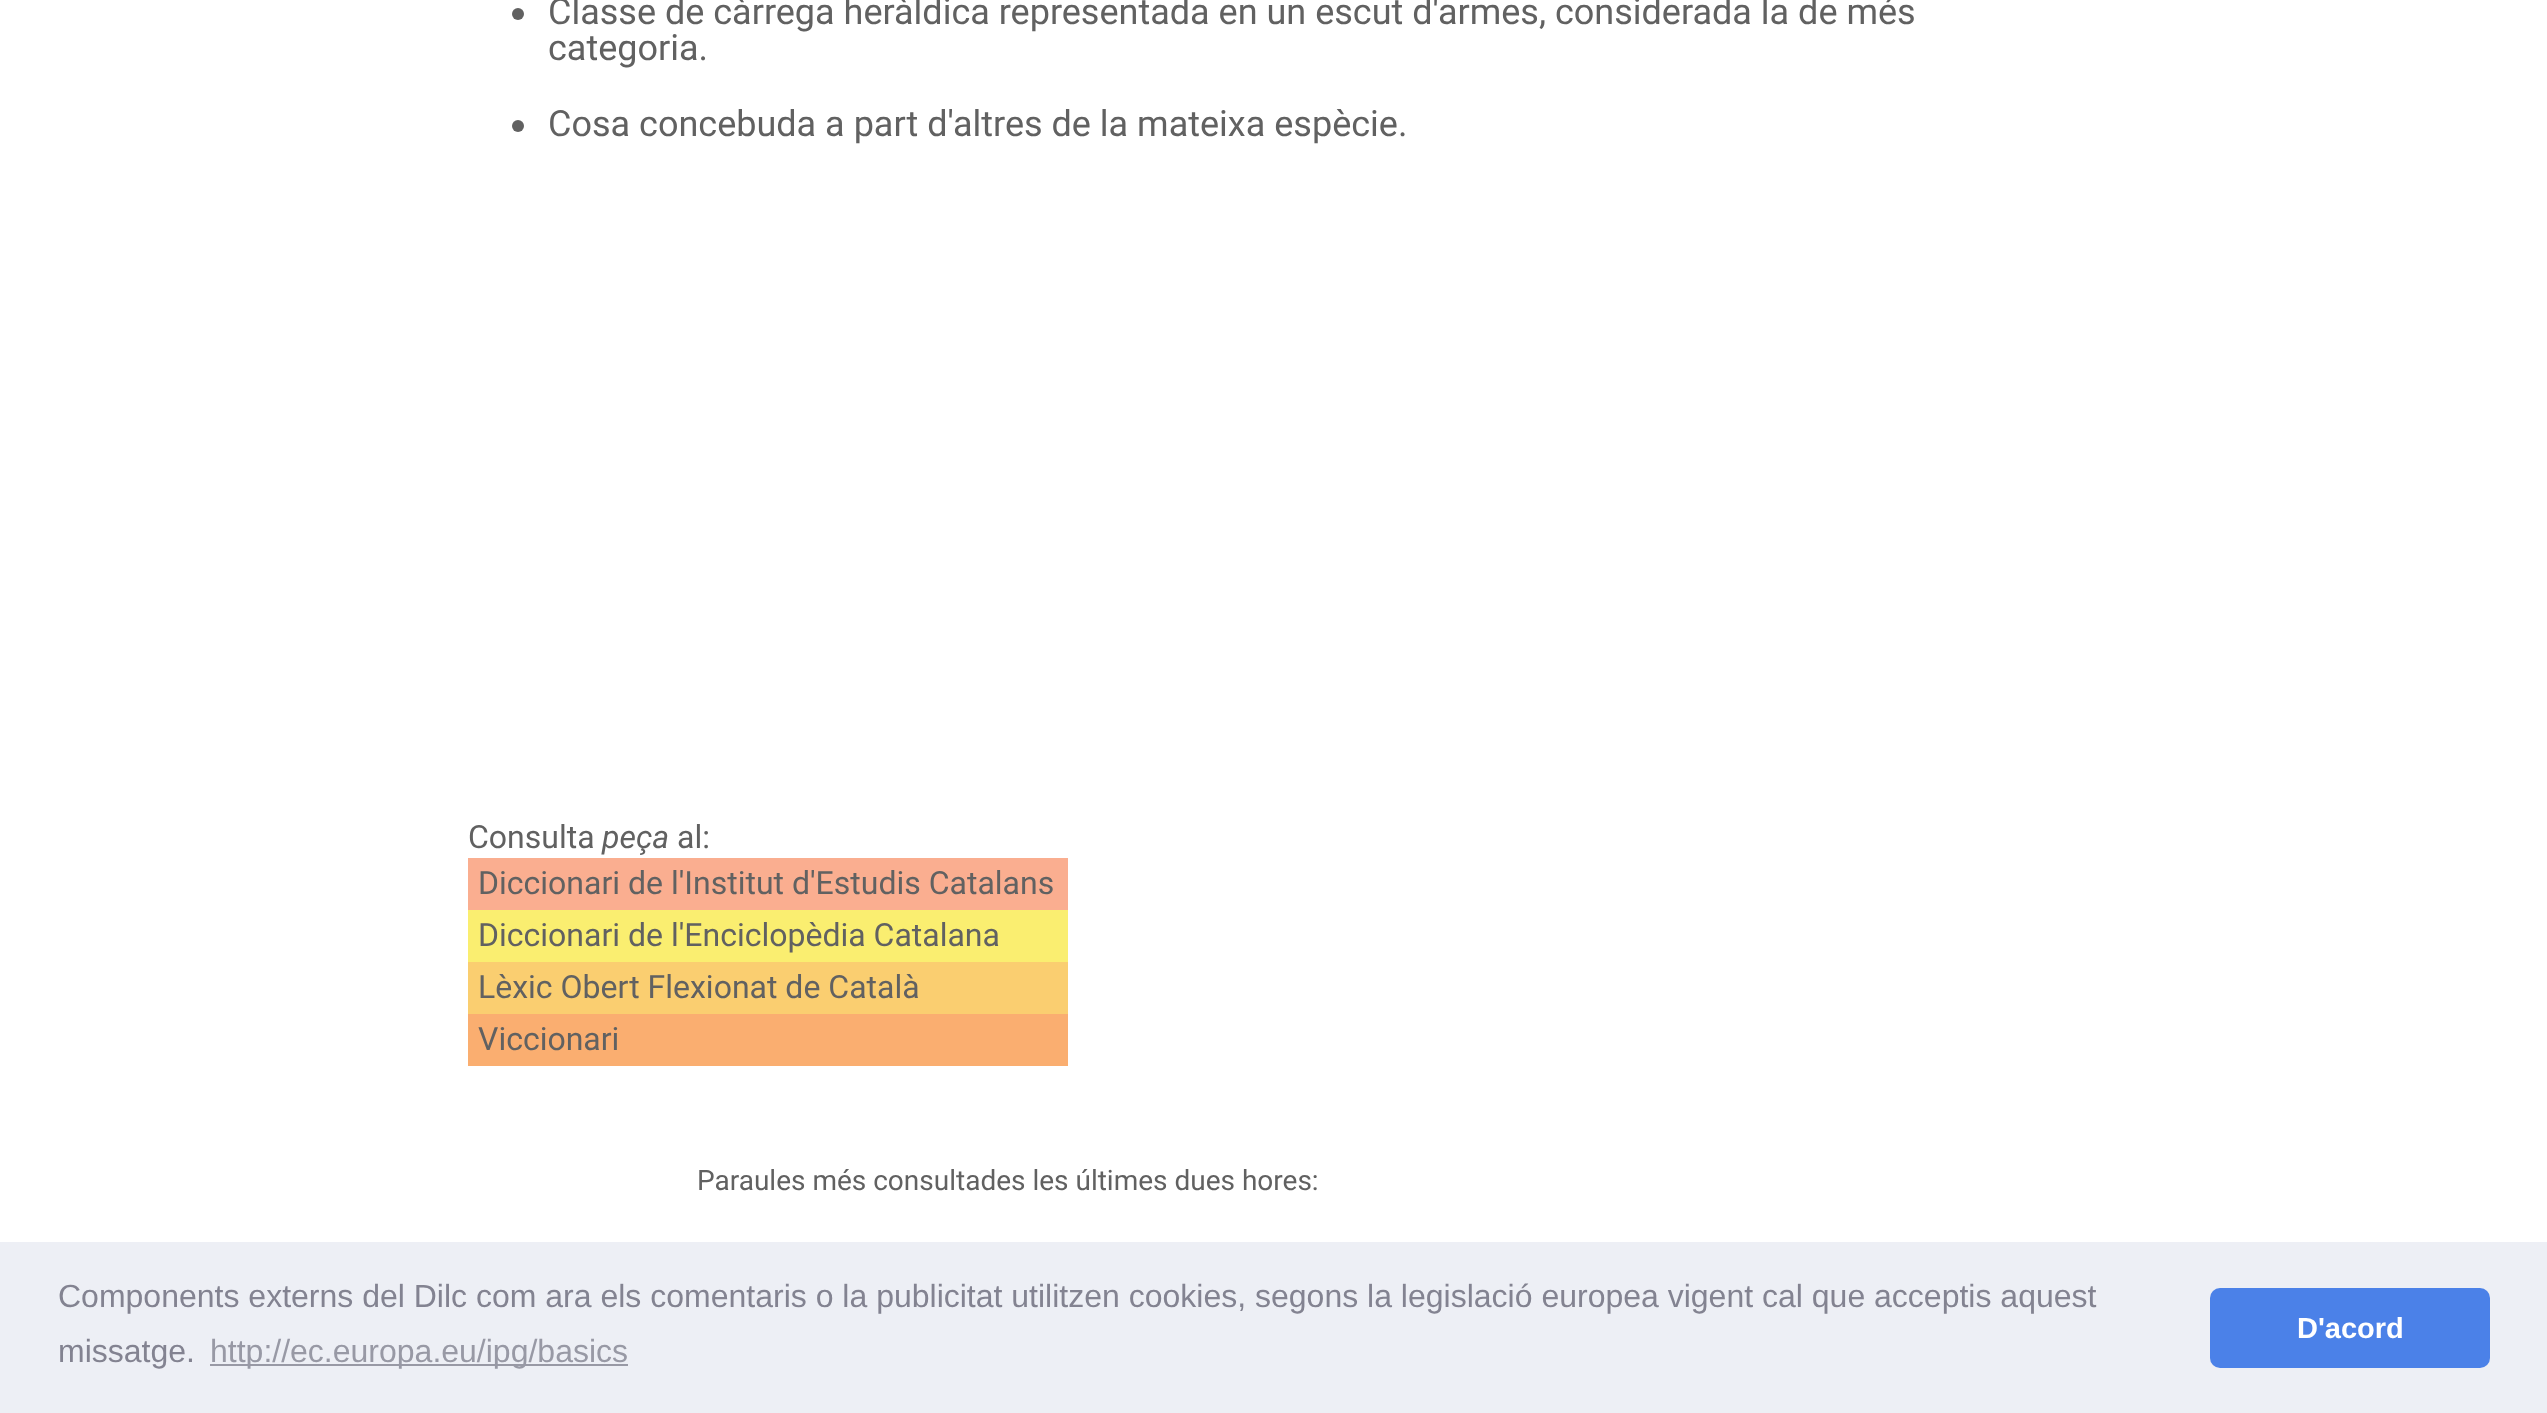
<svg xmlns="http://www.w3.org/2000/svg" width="2547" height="1413">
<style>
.a{font:36px Roboto;fill:#616161}
.b{font:32px Roboto;fill:#616161}
.c{font:italic 32px Roboto;fill:#616161}
.d{font:28px Roboto;fill:#616161}
.e{font:32px Liberation Sans;fill:#838391}
.f{font:32px Liberation Sans;fill:#9899a5}
.g{font:bold 29px Liberation Sans;fill:#fff}
</style>
<rect width="100%" height="100%" fill="#fff"/>
<circle fill="#616161" cx="518" cy="14" r="6"/>
<circle fill="#616161" cx="518" cy="126" r="6"/>
<path fill="#faae90" d="M468 858h600v52H468z"/>
<path fill="#faee70" d="M468 910h600v52H468z"/>
<path fill="#face70" d="M468 962h600v52H468z"/>
<path fill="#faae70" d="M468 1014h600v52H468z"/>
<path fill="#edeff5" d="M0 1242h2547v171H0z"/>
<path fill="#9899a5" d="M210 1364h418v2H210z"/>
<rect fill="#4b81e8" x="2210" y="1288" width="280" height="80" rx="10"/>
<text class="a" x="548" y="24">Classe de càrrega heràldica representada en un escut d'armes, considerada la de més</text>
<text class="a" x="548" y="60">categoria.</text>
<text class="a" x="548" y="136">Cosa concebuda a part d'altres de la mateixa espècie.</text>
<text class="b" x="468" y="848">Consulta</text>
<text class="c" x="602" y="848">peça</text>
<text class="b" x="677" y="848">al:</text>
<text class="b" x="478" y="894">Diccionari de l'Institut d'Estudis Catalans</text>
<text class="b" x="478" y="946">Diccionari de l'Enciclopèdia Catalana</text>
<text class="b" x="478" y="998">Lèxic Obert Flexionat de Català</text>
<text class="b" x="478" y="1050">Viccionari</text>
<text class="d" x="697" y="1190">Paraules més consultades les últimes dues hores:</text>
<text class="e" x="58" y="1307">Components externs del Dilc com ara els comentaris o la publicitat utilitzen cookies, segons la legislació europea vigent cal que acceptis aquest</text>
<text class="e" x="58" y="1362">missatge.</text>
<text class="f" x="210" y="1362">http://ec.europa.eu/ipg/basics</text>
<text class="g" x="2297" y="1338">D'acord</text>
</svg>
